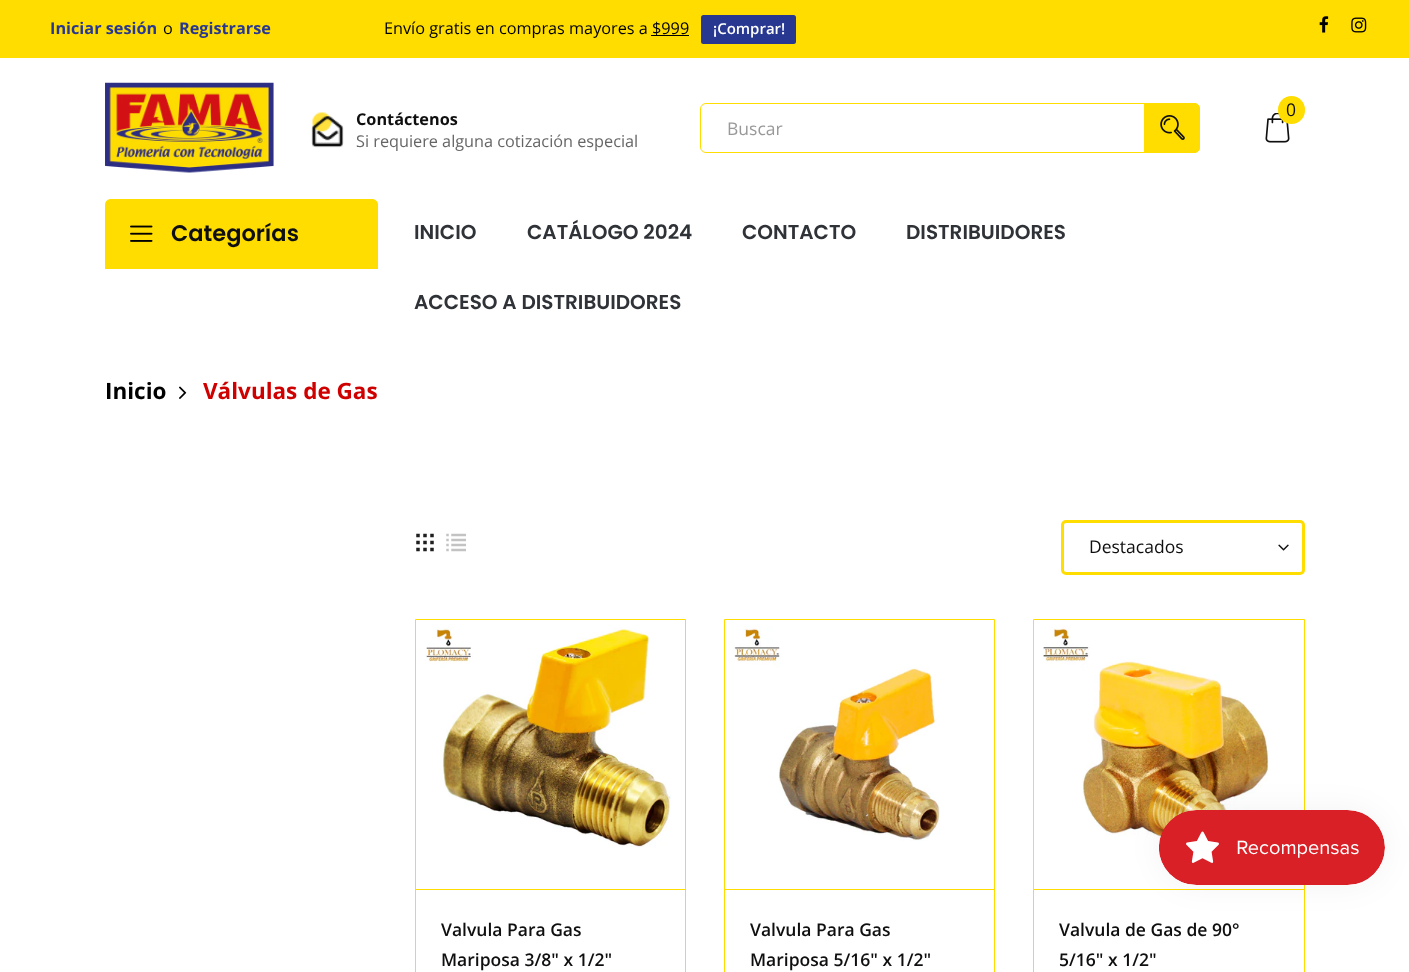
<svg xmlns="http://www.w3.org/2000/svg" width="1409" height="972">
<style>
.a{font:bold 16.25px Open Sans;fill:#283891}
.b{font:16.25px Open Sans;fill:#000}
.c{font:600 15px Open Sans;fill:#fff}
.d{font:17.5px Open Sans;fill:#0f0f0f}
.e{font:bold 16.25px Open Sans;fill:#0f0f0f}
.f{font:16.25px Open Sans;fill:#666}
.g{font:17.5px Open Sans;fill:#999}
.h{font:600 22.5px Poppins;fill:#0f0f0f}
.i{font:600 20px Poppins;fill:#2f3237}
.j{font:bold 22.5px Open Sans;fill:#000}
.k{font:bold 22.5px Open Sans;fill:#cf0000}
.l{font:600 17.5px Open Sans;fill:#0f0f0f}
</style>
<rect width="100%" height="100%" fill="#fff"/>
<path fill="#fd0" d="M0 0h1409v58H0z"/>
<rect fill="#283891" x="701" y="15" width="95" height="29" rx="2.5"/>
<path fill="#000" d="M651 35h38v1H651z"/>
<image href="1.png" x="1319" y="16" width="10" height="17"/>
<image href="2.png" x="1351" y="17" width="16" height="16"/>
<image href="3.png" x="105" y="82" width="169" height="91"/>
<image href="4.png" x="1265" y="113" width="25" height="30"/>
<rect fill="#fd0" x="1278" y="96" width="27" height="28" rx="13.5"/>
<image href="5.png" x="311" y="112" width="33" height="36"/>
<rect fill="none" stroke="#fd0" x="700.5" y="103.5" width="499" height="49" rx="5.5"/>
<path fill="#fd0" d="M1144 103h50c3.5 0 6 2.5 6 6v38c0 3.5-2.5 6-6 6h-50z"/>
<image href="6.png" x="1160" y="115" width="25" height="25"/>
<path fill="#fd0" d="M111 199h261c3.5 0 6 2.5 6 6v64h-273v-64c0-3.5 2.5-6 6-6z"/>
<image href="7.png" x="130" y="225" width="23" height="17"/>
<image href="8.png" x="179" y="386" width="8" height="13"/>
<image href="9.png" x="416" y="533" width="18" height="19"/>
<image href="10.png" x="446" y="533" width="20" height="19"/>
<rect fill="none" stroke="#fd0" stroke-width="3" x="1062.5" y="521.5" width="241" height="52" rx="3.5"/>
<image href="11.png" x="1278" y="544" width="11" height="7"/>
<path fill="none" stroke="#fd0" d="M415.5 619.5h270v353H415.5z"/>
<image href="12.png" x="426" y="627" width="245" height="220"/>
<path fill="#fd0" d="M416 889h269v1H416z"/>
<path fill="none" stroke="#fd0" d="M724.5 619.5h270v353H724.5z"/>
<image href="13.png" x="734" y="626" width="206" height="215"/>
<path fill="#fd0" d="M725 889h269v1H725z"/>
<path fill="none" stroke="#fd0" d="M1033.5 619.5h271v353H1033.5z"/>
<image href="14.png" x="1033" y="620" width="236" height="269"/>
<path fill="#fd0" d="M1034 889h270v1H1034z"/>
<rect fill="#0000000d" filter="blur(15.5px)" x="1159" y="810" width="226" height="75" rx="37.5"/>
<image href="15.png" x="1159" y="810" width="226" height="75"/>
<text class="a" x="50" y="34">Iniciar sesión</text>
<text class="b" x="163" y="34">o</text>
<text class="a" x="179" y="34">Registrarse</text>
<text class="b" x="384" y="34">Envío gratis en compras mayores a $999</text>
<text class="c" x="713" y="34">¡Comprar!</text>
<text class="d" x="1286" y="116">0</text>
<text class="e" x="356" y="125">Contáctenos</text>
<text class="f" x="356" y="147">Si requiere alguna cotización especial</text>
<text class="g" x="727" y="135">Buscar</text>
<text class="h" x="171" y="241">Categorías</text>
<text class="i" x="414" y="239">INICIO</text>
<text class="i" x="527" y="239">CATÁLOGO 2024</text>
<text class="i" x="742" y="239">CONTACTO</text>
<text class="i" x="906" y="239">DISTRIBUIDORES</text>
<text class="i" x="414" y="309">ACCESO A DISTRIBUIDORES</text>
<text class="j" x="105" y="399">Inicio</text>
<text class="k" x="203" y="399">Válvulas de Gas</text>
<text class="d" x="1089" y="553">Destacados</text>
<text class="l" x="441" y="936">Valvula Para Gas</text>
<text class="l" x="441" y="966">Mariposa 3/8" x 1/2"</text>
<text class="l" x="750" y="936">Valvula Para Gas</text>
<text class="l" x="750" y="966">Mariposa 5/16" x 1/2"</text>
<text class="l" x="1059" y="936">Valvula de Gas de 90°</text>
<text class="l" x="1059" y="966">5/16" x 1/2"</text>
</svg>
